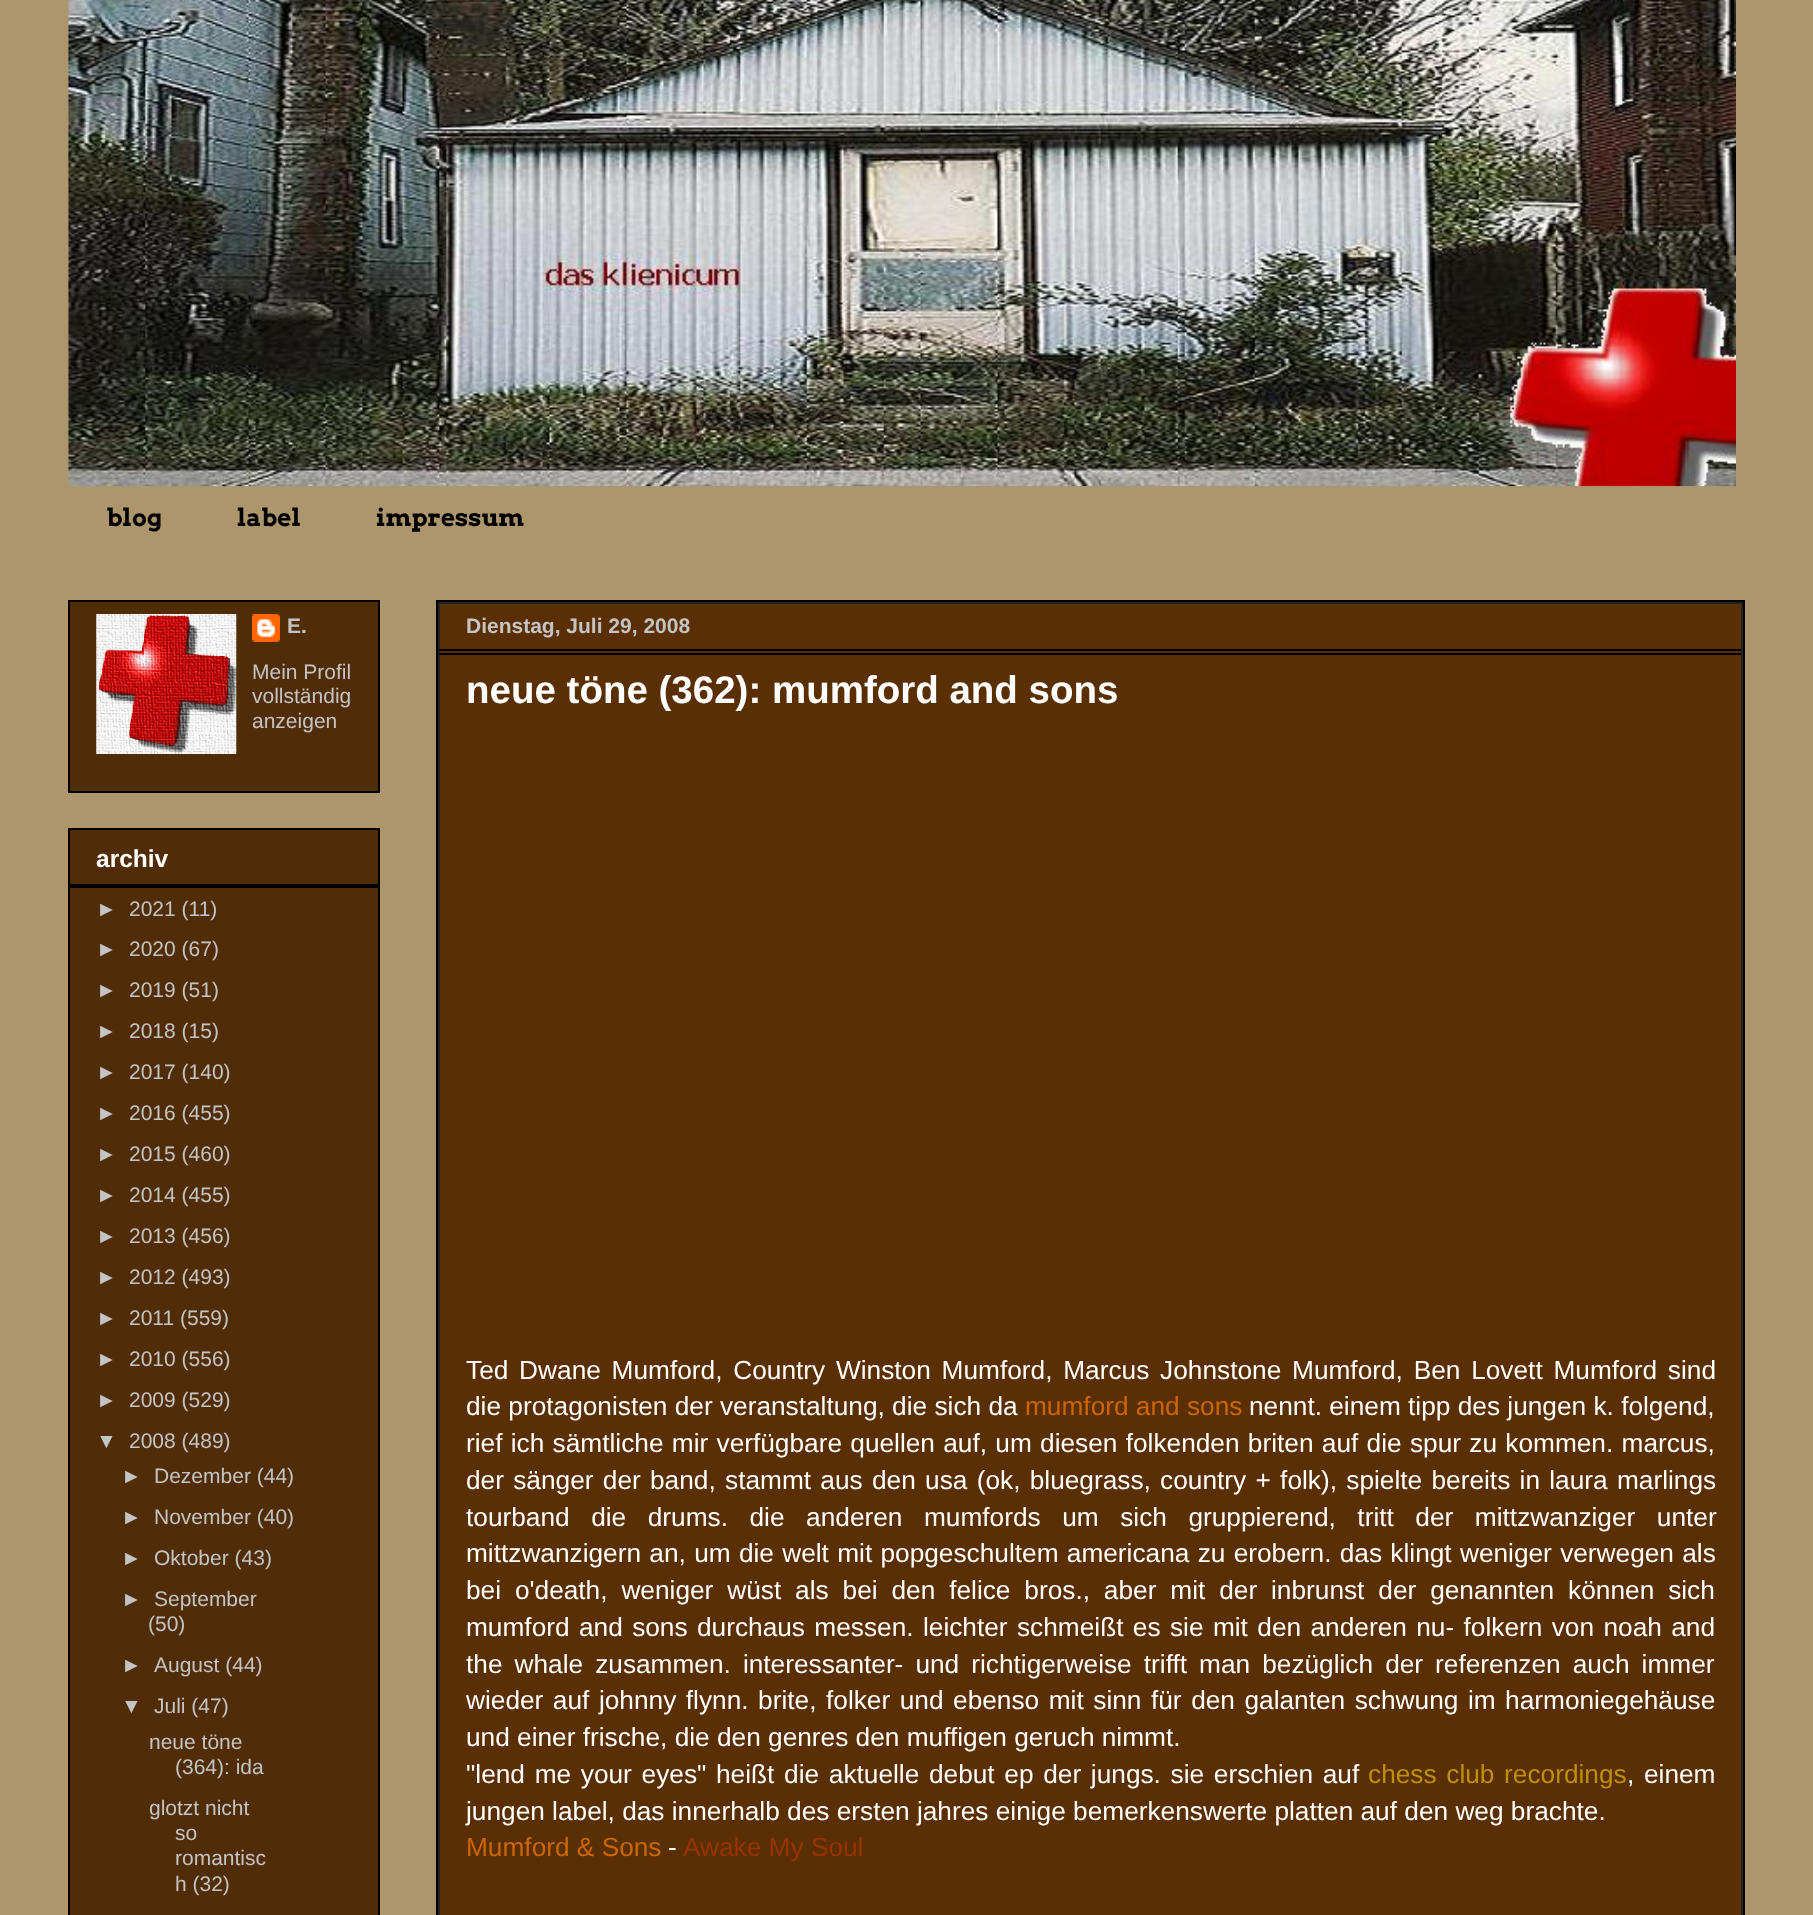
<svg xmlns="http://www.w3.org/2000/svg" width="1813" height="1915">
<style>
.a{font:bold 24.5px Arvo;fill:#000}
.b{font:bold 21px Liberation Sans;fill:#c4c4c4}
.c{font:21px Liberation Sans;fill:#c4c4c4}
.d{font:bold 24.5px Liberation Sans;fill:#fff}
.e{font:bold 38.5px Liberation Sans;fill:#fff}
.f{font:26.25px Liberation Sans;fill:#fff}
.g{font:26.25px Liberation Sans;fill:#c60}
.h{font:26.25px Liberation Sans;fill:#bf9000}
.i{font:26.25px Liberation Sans;fill:#930}
</style>
<rect width="100%" height="100%" fill="#ad966c"/>
<image href="1.png" x="68" y="0" width="1668" height="487"/>
<path fill="#502d07" stroke="#000" stroke-width="2" d="M69 601h310v191H69z"/>
<image href="2.png" x="96" y="614" width="141" height="140"/>
<image href="3.png" x="252" y="614" width="28" height="28"/>
<path fill="#502d07" stroke="#000" stroke-width="2" d="M69 829h310v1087H69z"/>
<path fill="#000" d="M70 884h308v4H70z"/>
<path fill="none" stroke="#000" stroke-width="2" d="M437 601h1307v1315H437z"/>
<path fill="#592f03" stroke="#222" stroke-width="2" d="M439 603h1303v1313H439z"/>
<path fill="#000" d="M439 649h1302v2H439z"/>
<path fill="#000" d="M439 653h1302v2H439z"/>
<text class="a" x="107" y="526">blog</text>
<text class="a" x="237" y="526">label</text>
<text class="a" x="376" y="526">impressum</text>
<text class="b" x="287" y="633">E.</text>
<text class="c" x="252" y="679">Mein Profil</text>
<text class="c" x="252" y="703">vollständig</text>
<text class="c" x="252" y="728">anzeigen</text>
<text class="d" x="96" y="867">archiv</text>
<text class="c" x="96" y="916">►</text>
<text class="c" x="129" y="916">2021 (11)</text>
<text class="c" x="96" y="956">►</text>
<text class="c" x="129" y="956">2020 (67)</text>
<text class="c" x="96" y="997">►</text>
<text class="c" x="129" y="997">2019 (51)</text>
<text class="c" x="96" y="1038">►</text>
<text class="c" x="129" y="1038">2018 (15)</text>
<text class="c" x="96" y="1079">►</text>
<text class="c" x="129" y="1079">2017 (140)</text>
<text class="c" x="96" y="1120">►</text>
<text class="c" x="129" y="1120">2016 (455)</text>
<text class="c" x="96" y="1161">►</text>
<text class="c" x="129" y="1161">2015 (460)</text>
<text class="c" x="96" y="1202">►</text>
<text class="c" x="129" y="1202">2014 (455)</text>
<text class="c" x="96" y="1243">►</text>
<text class="c" x="129" y="1243">2013 (456)</text>
<text class="c" x="96" y="1284">►</text>
<text class="c" x="129" y="1284">2012 (493)</text>
<text class="c" x="96" y="1325">►</text>
<text class="c" x="129" y="1325">2011 (559)</text>
<text class="c" x="96" y="1366">►</text>
<text class="c" x="129" y="1366">2010 (556)</text>
<text class="c" x="96" y="1407">►</text>
<text class="c" x="129" y="1407">2009 (529)</text>
<text class="c" x="96" y="1448">▼</text>
<text class="c" x="129" y="1448">2008 (489)</text>
<text class="c" x="121" y="1483">►</text>
<text class="c" x="154" y="1483">Dezember (44)</text>
<text class="c" x="121" y="1524">►</text>
<text class="c" x="154" y="1524">November (40)</text>
<text class="c" x="121" y="1565">►</text>
<text class="c" x="154" y="1565">Oktober (43)</text>
<text class="c" x="121" y="1606">►</text>
<text class="c" x="154" y="1606">September</text>
<text class="c" x="148" y="1631">(50)</text>
<text class="c" x="121" y="1672">►</text>
<text class="c" x="154" y="1672">August (44)</text>
<text class="c" x="121" y="1713">▼</text>
<text class="c" x="154" y="1713">Juli (47)</text>
<text class="c" x="149" y="1749">neue töne</text>
<text class="c" x="175" y="1774">(364): ida</text>
<text class="c" x="149" y="1815">glotzt nicht</text>
<text class="c" x="175" y="1840">so</text>
<text class="c" x="175" y="1865">romantisc</text>
<text class="c" x="175" y="1891">h (32)</text>
<text class="b" x="466" y="633">Dienstag, Juli 29, 2008</text>
<text class="e" x="466" y="703">neue töne (362): mumford and sons</text>
<text class="f" x="466" y="1379" word-spacing="3.5">Ted Dwane Mumford, Country Winston Mumford, Marcus Johnstone Mumford, Ben Lovett Mumford sind</text>
<text class="f" x="466" y="1415">die protagonisten der veranstaltung, die sich da</text>
<text class="g" x="1025" y="1415">mumford and sons</text>
<text class="f" x="1249" y="1415">nennt. einem tipp des jungen k. folgend,</text>
<text class="f" x="466" y="1452" word-spacing="1">rief ich sämtliche mir verfügbare quellen auf, um diesen folkenden briten auf die spur zu kommen. marcus,</text>
<text class="f" x="466" y="1489" word-spacing="2">der sänger der band, stammt aus den usa (ok, bluegrass, country + folk), spielte bereits in laura marlings</text>
<text class="f" x="466" y="1526" word-spacing="14.25">tourband die drums. die anderen mumfords um sich gruppierend, tritt der mittzwanziger unter</text>
<text class="f" x="466" y="1562" word-spacing="1">mittzwanzigern an, um die welt mit popgeschultem americana zu erobern. das klingt weniger verwegen als</text>
<text class="f" x="466" y="1599" word-spacing="6.6">bei o'death, weniger wüst als bei den felice bros., aber mit der inbrunst der genannten können sich</text>
<text class="f" x="466" y="1636" word-spacing="2.1">mumford and sons durchaus messen. leichter schmeißt es sie mit den anderen nu- folkern von noah and</text>
<text class="f" x="466" y="1673" word-spacing="4.75">the whale zusammen. interessanter- und richtigerweise trifft man bezüglich der referenzen auch immer</text>
<text class="f" x="466" y="1709" word-spacing="2.25">wieder auf johnny flynn. brite, folker und ebenso mit sinn für den galanten schwung im harmoniegehäuse</text>
<text class="f" x="466" y="1746">und einer frische, die den genres den muffigen geruch nimmt.</text>
<text class="f" x="466" y="1783" word-spacing="2.4">"lend me your eyes" heißt die aktuelle debut ep der jungs. sie erschien auf</text>
<text class="h" x="1368" y="1783" word-spacing="2.4">chess club recordings</text>
<text class="f" x="1627" y="1783" word-spacing="2.4">, einem</text>
<text class="f" x="466" y="1820">jungen label, das innerhalb des ersten jahres einige bemerkenswerte platten auf den weg brachte.</text>
<text class="g" x="466" y="1856">Mumford &amp; Sons</text>
<text class="f" x="668" y="1856">-</text>
<text class="i" x="683" y="1856">Awake My Soul</text>
</svg>
